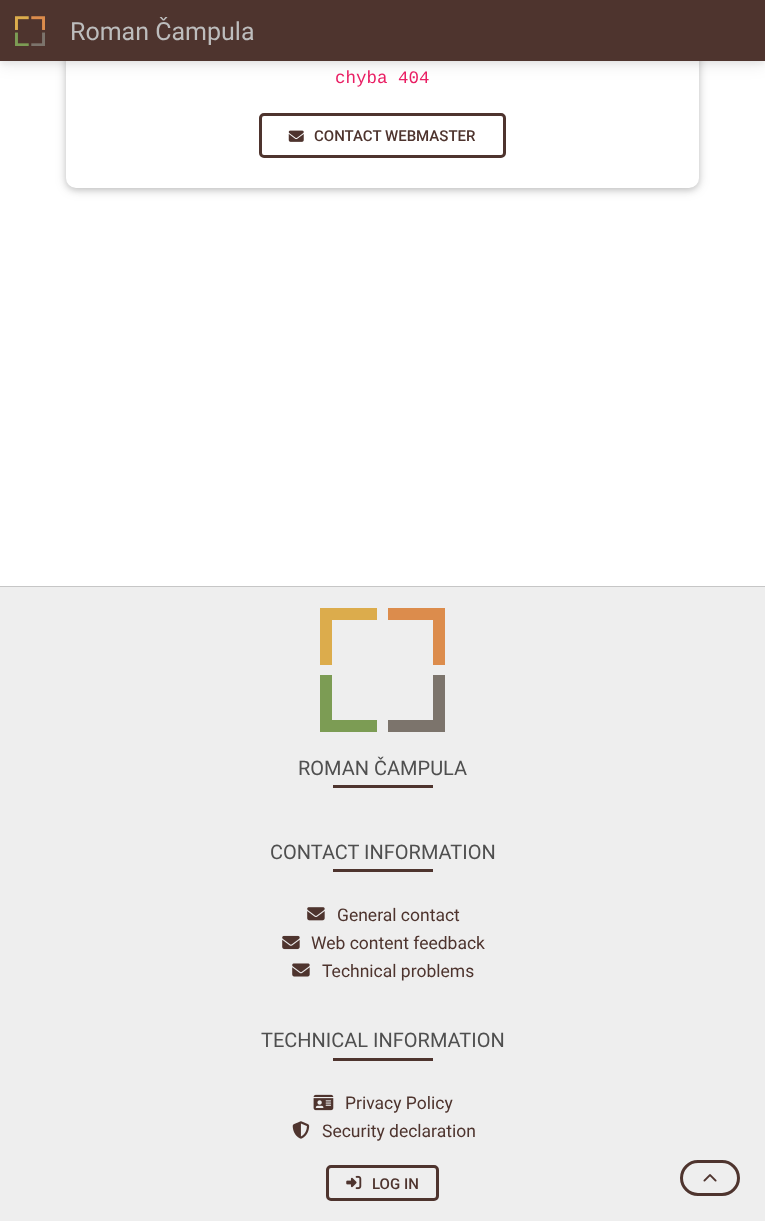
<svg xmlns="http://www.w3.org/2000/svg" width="765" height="1221">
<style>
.a{font:25px Roboto;fill:#bdbdbd}
.b{font:17.5px Liberation Mono;fill:#e91e63}
.c{font:500 15px Roboto;fill:#4e342e}
.d{font:20px Roboto;fill:#4f4f4f}
.e{font:17.5px Roboto;fill:#4e342e}
</style>
<rect width="100%" height="100%" fill="#fff"/>
<rect fill="#0000001f" filter="blur(6px)" x="66" y="-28" width="633" height="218" rx="10"/>
<rect fill="#00000029" filter="blur(3px)" x="66" y="-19" width="633" height="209" rx="10"/>
<rect fill="#fff" x="66" y="-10" width="633" height="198" rx="10"/>
<path fill="#0000000d" filter="blur(2.5px)" d="M0 3h765v61H0z"/>
<path fill="#00000012" filter="blur(7.5px)" d="M0 5h765v61H0z"/>
<path fill="#4e342e" d="M0 0h765v61H0z"/>
<image href="1.png" x="15" y="16" width="30" height="30"/>
<rect fill="none" stroke="#4e342e" stroke-width="3" x="260.5" y="114.5" width="244" height="42" rx="3.5"/>
<image href="2.png" x="288" y="130" width="16" height="12"/>
<path fill="#eee" d="M0 587h765v634H0z"/>
<path fill="#c6c6c6" d="M0 586h765v1H0z"/>
<path fill="#dcac4c" fill-rule="evenodd" d="M320 636v29h12v-45h45v-12h-57v28"/>
<path fill="#dc8c4c" fill-rule="evenodd" d="M388 614v6h45v45h12v-57h-57v6"/>
<path fill="#7c9c54" fill-rule="evenodd" d="M320 704v28h57v-12h-45v-45h-12v29"/>
<path fill="#7c746c" fill-rule="evenodd" d="M433 698v22h-45v12h57v-57h-12v23"/>
<path fill="#4e342e" d="M333 785h100v3H333z"/>
<path fill="#4e342e" d="M333 869h100v3H333z"/>
<image href="3.png" x="307" y="907" width="18" height="14"/>
<image href="4.png" x="282" y="935" width="18" height="15"/>
<image href="5.png" x="292" y="963" width="18" height="14"/>
<path fill="#4e342e" d="M333 1058h100v3H333z"/>
<image href="6.png" x="313" y="1094" width="21" height="17"/>
<image href="7.png" x="292" y="1121" width="18" height="18"/>
<rect fill="none" stroke="#4e342e" stroke-width="3" x="327.5" y="1166.5" width="110" height="33" rx="3.5"/>
<image href="8.png" x="346" y="1175" width="16" height="15"/>
<rect fill="none" stroke="#4e342e" stroke-width="3" x="681.5" y="1161.5" width="57" height="33" rx="16.5"/>
<image href="9.png" x="703" y="1174" width="14" height="8"/>
<text class="a" x="70" y="40">Roman Čampula</text>
<text class="b" x="335" y="83">chyba 404</text>
<text class="c" x="314" y="141">CONTACT WEBMASTER</text>
<text class="d" x="298" y="775">ROMAN ČAMPULA</text>
<text class="d" x="270" y="859">CONTACT INFORMATION</text>
<text class="e" x="337" y="921">General contact</text>
<text class="e" x="311" y="949">Web content feedback</text>
<text class="e" x="322" y="977">Technical problems</text>
<text class="d" x="261" y="1047">TECHNICAL INFORMATION</text>
<text class="e" x="345" y="1109">Privacy Policy</text>
<text class="e" x="322" y="1137">Security declaration</text>
<text class="c" x="372" y="1189">LOG IN</text>
</svg>
